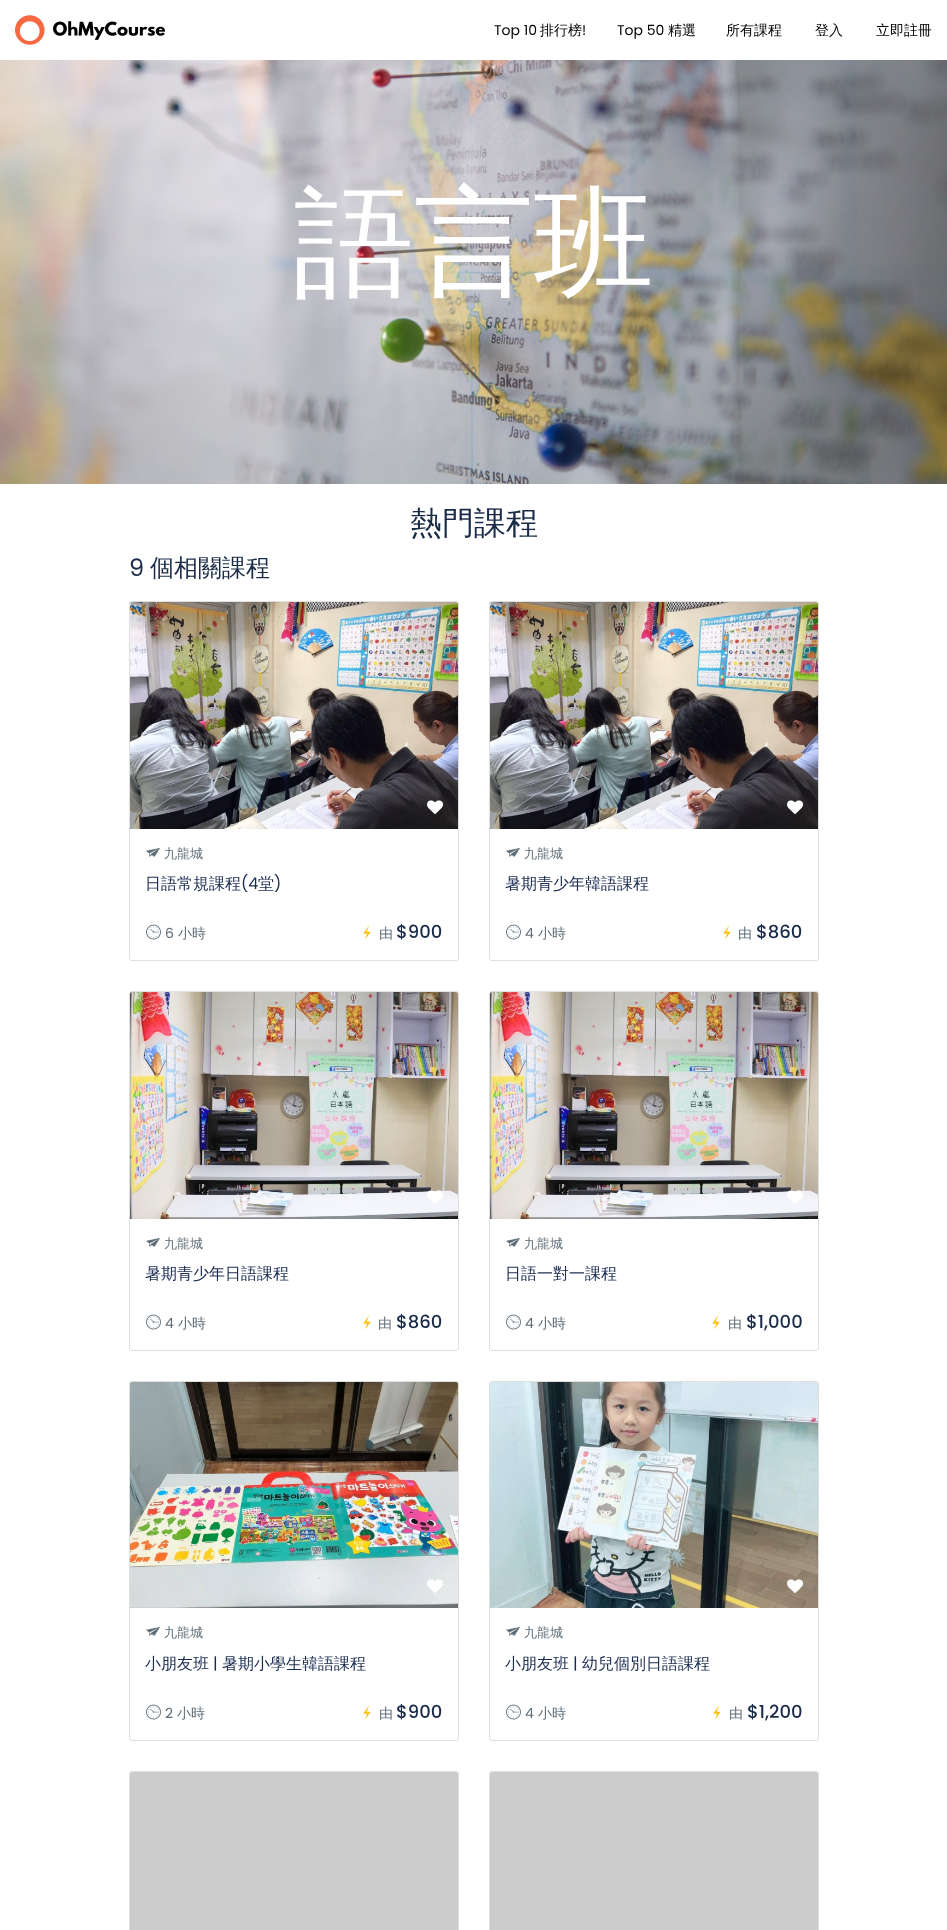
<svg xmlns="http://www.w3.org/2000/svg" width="947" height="1930">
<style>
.a{font:14px Poppins;fill:#000}
.b{font:500 14px WenQuanYi Zen Hei;fill:#000}
.c{font:500 120px WenQuanYi Zen Hei;fill:#fff}
.d{font:500 32px WenQuanYi Zen Hei;fill:#1a2b48}
.e{font:24px Poppins;fill:#1a2b48}
.f{font:500 24px WenQuanYi Zen Hei;fill:#1a2b48}
.g{font:500 13px WenQuanYi Zen Hei;fill:#5e6d77}
.h{font:500 16px WenQuanYi Zen Hei;fill:#1a2b50}
.i{font:16px Poppins;fill:#1a2b50}
.j{font:14px Poppins;fill:#5e6d77}
.k{font:500 14px WenQuanYi Zen Hei;fill:#5e6d77}
.l{font:500 18px Poppins;fill:#1a2b48}
</style>
<rect width="100%" height="100%" fill="#fff"/>
<image href="1.png" x="15" y="15" width="150" height="30"/>
<image href="2.png" x="0" y="60" width="947" height="424"/>
<rect fill="none" stroke="#dfdfdf" x="129.5" y="601.5" width="329" height="359" rx="2.5"/>
<image href="3.png" x="130" y="602" width="328" height="227"/>
<image href="4.png" x="427" y="800" width="16" height="15"/>
<image href="5.png" x="146" y="848" width="14" height="9"/>
<image href="6.png" x="146" y="924" width="15" height="16"/>
<image href="7.png" x="363" y="925" width="8" height="15"/>
<rect fill="none" stroke="#dfdfdf" x="489.5" y="601.5" width="329" height="359" rx="2.5"/>
<image href="3.png" x="490" y="602" width="328" height="227"/>
<image href="4.png" x="787" y="800" width="16" height="15"/>
<image href="5.png" x="506" y="848" width="14" height="9"/>
<image href="6.png" x="506" y="924" width="15" height="16"/>
<image href="7.png" x="723" y="925" width="8" height="15"/>
<rect fill="none" stroke="#dfdfdf" x="129.5" y="991.5" width="329" height="359" rx="2.5"/>
<image href="8.png" x="130" y="992" width="328" height="227"/>
<image href="9.png" x="427" y="1190" width="16" height="14"/>
<image href="5.png" x="146" y="1238" width="14" height="9"/>
<image href="6.png" x="146" y="1314" width="15" height="16"/>
<image href="7.png" x="363" y="1315" width="8" height="15"/>
<rect fill="none" stroke="#dfdfdf" x="489.5" y="991.5" width="329" height="359" rx="2.5"/>
<image href="8.png" x="490" y="992" width="328" height="227"/>
<image href="9.png" x="787" y="1190" width="16" height="14"/>
<image href="5.png" x="506" y="1238" width="14" height="9"/>
<image href="6.png" x="506" y="1314" width="15" height="16"/>
<image href="7.png" x="712" y="1315" width="8" height="15"/>
<rect fill="none" stroke="#dfdfdf" x="129.5" y="1381.5" width="329" height="359" rx="2.5"/>
<image href="10.png" x="130" y="1382" width="328" height="226"/>
<image href="11.png" x="427" y="1579" width="16" height="14"/>
<image href="5.png" x="146" y="1627" width="14" height="9"/>
<image href="6.png" x="146" y="1704" width="15" height="16"/>
<image href="7.png" x="363" y="1705" width="8" height="15"/>
<rect fill="none" stroke="#dfdfdf" x="489.5" y="1381.5" width="329" height="359" rx="2.5"/>
<image href="12.png" x="490" y="1382" width="328" height="226"/>
<image href="13.png" x="787" y="1579" width="16" height="14"/>
<image href="5.png" x="506" y="1627" width="14" height="9"/>
<image href="6.png" x="506" y="1704" width="15" height="16"/>
<image href="7.png" x="713" y="1705" width="8" height="15"/>
<rect fill="none" stroke="#dfdfdf" x="129.5" y="1771.5" width="329" height="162" rx="2.5"/>
<path fill="#ccc" d="M132 1772h324c1 0 2 1 2 2v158h-328v-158c0-1 1-2 2-2z"/>
<rect fill="none" stroke="#dfdfdf" x="489.5" y="1771.5" width="329" height="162" rx="2.5"/>
<path fill="#ccc" d="M492 1772h324c1 0 2 1 2 2v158h-328v-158c0-1 1-2 2-2z"/>
<text class="a" x="494" y="35">Top 10</text>
<text class="b" x="540" y="35">排行榜</text>
<text class="a" x="582" y="35">!</text>
<text class="a" x="617" y="35">Top 50</text>
<text class="b" x="668" y="35">精選</text>
<text class="b" x="726" y="35">所有課程</text>
<text class="b" x="815" y="35">登入</text>
<text class="b" x="876" y="35">立即註冊</text>
<text class="c" x="294" y="284">語言班</text>
<text class="d" x="410" y="534">熱門課程</text>
<text class="e" x="129" y="576">9</text>
<text class="f" x="150" y="576">個相關課程</text>
<text class="g" x="164" y="858">九龍城</text>
<text class="h" x="145" y="889">日語常規課程</text>
<text class="i" x="241" y="889">(4</text>
<text class="h" x="258" y="889">堂</text>
<text class="i" x="274" y="889">)</text>
<text class="j" x="165" y="938">6</text>
<text class="k" x="178" y="938">小時</text>
<text class="k" x="379" y="938">由</text>
<text class="l" x="396" y="938">$900</text>
<text class="g" x="524" y="858">九龍城</text>
<text class="h" x="505" y="889">暑期青少年韓語課程</text>
<text class="j" x="525" y="938">4</text>
<text class="k" x="538" y="938">小時</text>
<text class="k" x="738" y="938">由</text>
<text class="l" x="756" y="938">$860</text>
<text class="g" x="164" y="1248">九龍城</text>
<text class="h" x="145" y="1279">暑期青少年日語課程</text>
<text class="j" x="165" y="1328">4</text>
<text class="k" x="178" y="1328">小時</text>
<text class="k" x="378" y="1328">由</text>
<text class="l" x="396" y="1328">$860</text>
<text class="g" x="524" y="1248">九龍城</text>
<text class="h" x="505" y="1279">日語一對一課程</text>
<text class="j" x="525" y="1328">4</text>
<text class="k" x="538" y="1328">小時</text>
<text class="k" x="728" y="1328">由</text>
<text class="l" x="746" y="1328">$1,000</text>
<text class="g" x="164" y="1637">九龍城</text>
<text class="h" x="145" y="1669">小朋友班</text>
<text class="i" x="213" y="1669">|</text>
<text class="h" x="222" y="1669">暑期小學生韓語課程</text>
<text class="j" x="165" y="1718">2</text>
<text class="k" x="177" y="1718">小時</text>
<text class="k" x="379" y="1718">由</text>
<text class="l" x="396" y="1718">$900</text>
<text class="g" x="524" y="1637">九龍城</text>
<text class="h" x="505" y="1669">小朋友班</text>
<text class="i" x="573" y="1669">|</text>
<text class="h" x="582" y="1669">幼兒個別日語課程</text>
<text class="j" x="525" y="1718">4</text>
<text class="k" x="538" y="1718">小時</text>
<text class="k" x="729" y="1718">由</text>
<text class="l" x="747" y="1718">$1,200</text>
</svg>
